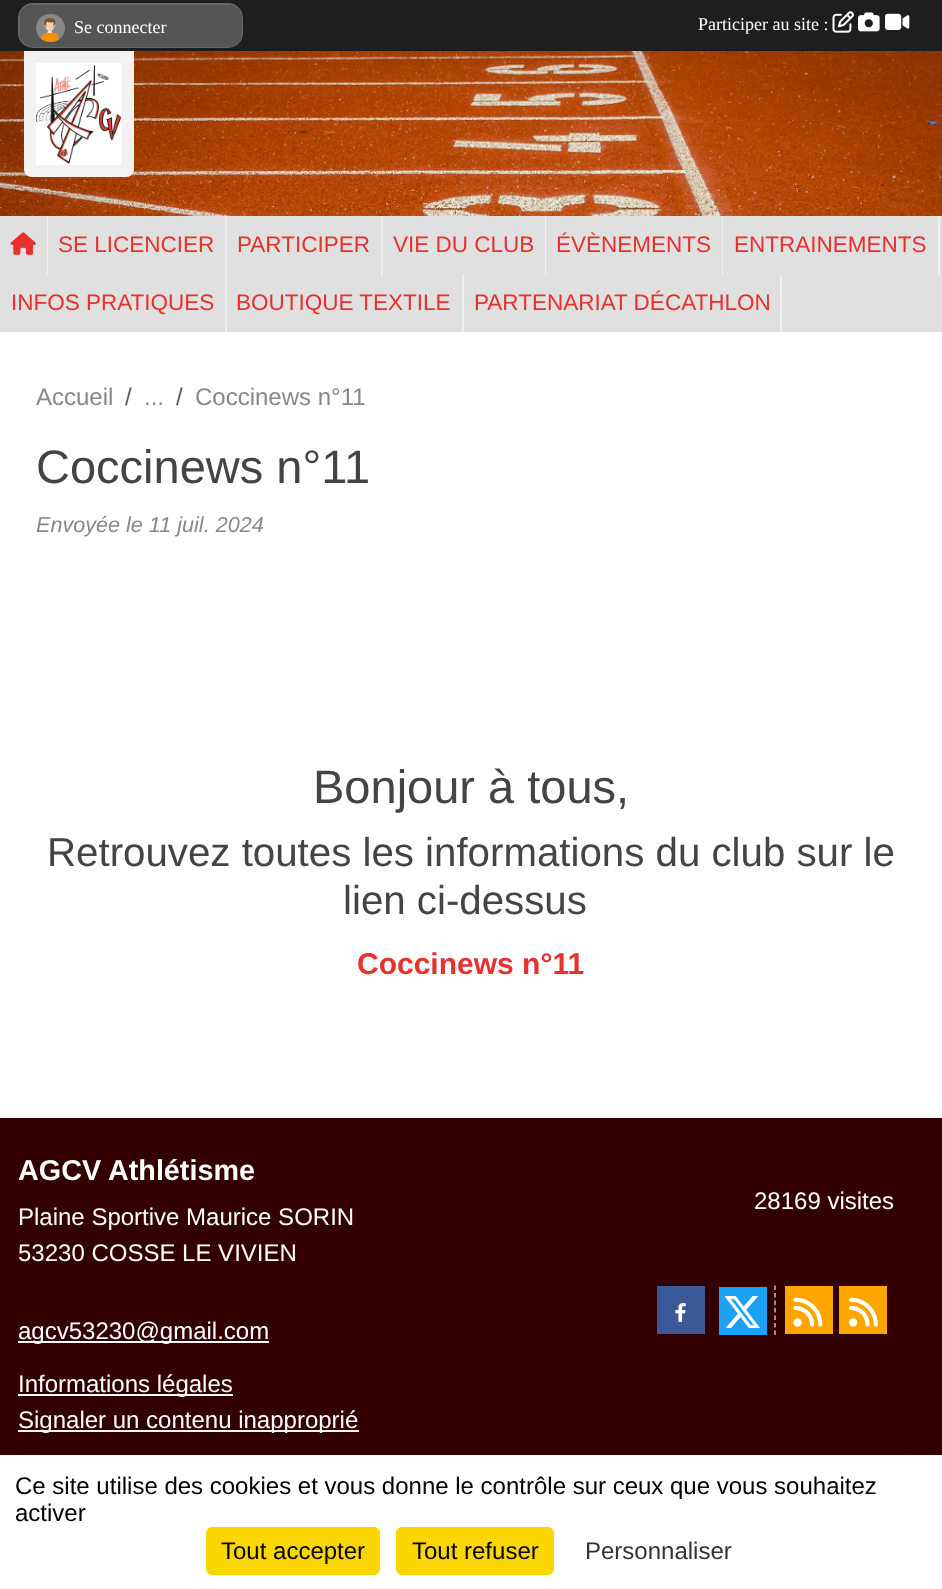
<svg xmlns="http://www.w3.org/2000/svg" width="942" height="1589">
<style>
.a{font:18px Liberation Serif;fill:#fff}
.b{font:22.5px Liberation Sans;fill:#e6312e}
.c{font:24px Liberation Sans;fill:#888}
.d{font:24px Liberation Sans;fill:#595c5f}
.e{font:47px Liberation Sans;fill:#444}
.f{font:italic 21.6px Liberation Sans;fill:#888}
.g{font:40.25px Liberation Sans;fill:#444}
.h{font:bold 30px Liberation Sans;fill:#e6312e}
.i{font:bold 28.75px Liberation Sans;fill:#fff}
.j{font:24px Liberation Sans;fill:#fff}
.k{font:24px Liberation Sans;fill:#000}
.l{font:24px Liberation Sans;fill:#333}
</style>
<rect width="100%" height="100%" fill="#e0e0e0"/>
<path fill="#1e1e1e" d="M0 0h942v51H0z"/>
<rect fill="#333" stroke="#666" stroke-width="2" x="19" y="4" width="223" height="43" rx="14"/>
<rect fill="#555" x="20" y="5" width="222" height="42" rx="14"/>
<image href="1.png" x="36" y="14" width="29" height="28"/>
<image href="2.png" x="832" y="11" width="22" height="22"/>
<image href="3.png" x="858" y="12" width="22" height="20"/>
<image href="4.png" x="885" y="13" width="25" height="17"/>
<image href="6.png" x="0" y="51" width="942" height="165"/>
<path fill="#f2f2f2" d="M24 51h110v118c0 4.5-3.5 8-8 8h-94c-4.5 0-8-3.5-8-8z"/>
<image href="5.png" x="36" y="63" width="86" height="102"/>
<path fill="#f0f0f0" d="M47 216h1v59H47z"/>
<image href="7.png" x="10" y="232" width="26" height="23"/>
<path fill="#f0f0f0" d="M225 216h2v116H225z"/>
<path fill="#f0f0f0" d="M381 216h2v59H381z"/>
<path fill="#f0f0f0" d="M545 216h1v59H545z"/>
<path fill="#f0f0f0" d="M722 216h1v59H722z"/>
<path fill="#f0f0f0" d="M938 216h2v59H938z"/>
<path fill="#f0f0f0" d="M462 275h2v57H462z"/>
<path fill="#f0f0f0" d="M780 275h2v57H780z"/>
<path fill="#fff" d="M0 332h942v786H0z"/>
<path fill="#300" d="M0 1118h942v337H0z"/>
<path fill="#fff" d="M18 1341h251v2H18z"/>
<path fill="#fff" d="M18 1394h215v2H18z"/>
<path fill="#fff" d="M18 1430h341v2H18z"/>
<path fill="#3b5998" d="M657 1286h48v48H657z"/>
<image href="8.png" x="675" y="1303" width="11" height="19"/>
<path fill="#1da1f2" d="M719 1287h48v48H719z"/>
<image href="9.png" x="725" y="1296" width="35" height="32"/>
<path fill="none" stroke="#c0c0c0" stroke-width="1.5" stroke-dasharray="4.5 3" d="M775 1285.5v49.5"/>
<path fill="#ffa500" d="M785 1286h48v48H785z"/>
<image href="10.png" x="793" y="1297" width="30" height="30"/>
<path fill="#ffa500" d="M839 1286h48v48H839z"/>
<image href="11.png" x="849" y="1297" width="29" height="30"/>
<path fill="#00000040" filter="blur(45px)" d="M0 1485h942v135H0z"/>
<path fill="#fff" d="M0 1455h942v134H0z"/>
<rect fill="#fbd600" x="206" y="1527" width="174" height="48" rx="6"/>
<rect fill="#fbd600" x="396" y="1527" width="158" height="48" rx="6"/>
<text class="a" x="74" y="33">Se connecter</text>
<text class="a" x="698" y="30">Participer au site :</text>
<text class="b" x="58" y="252">SE LICENCIER</text>
<text class="b" x="237" y="252">PARTICIPER</text>
<text class="b" x="393" y="252">VIE DU CLUB</text>
<text class="b" x="556" y="252">ÉVÈNEMENTS</text>
<text class="b" x="734" y="252">ENTRAINEMENTS</text>
<text class="b" x="11" y="310">INFOS PRATIQUES</text>
<text class="b" x="236" y="310">BOUTIQUE TEXTILE</text>
<text class="b" x="474" y="310">PARTENARIAT DÉCATHLON</text>
<text class="c" x="36" y="405">Accueil</text>
<text class="d" x="125" y="405">/</text>
<text class="c" x="144" y="405">...</text>
<text class="d" x="176" y="405">/</text>
<text class="c" x="195" y="405">Coccinews n°11</text>
<text class="e" x="36" y="483">Coccinews n°11</text>
<text class="f" x="36" y="532">Envoyée le 11 juil. 2024</text>
<text class="e" x="313" y="803">Bonjour à tous,</text>
<text class="g" x="47" y="866">Retrouvez toutes les informations du club sur le</text>
<text class="g" x="343" y="914">lien ci-dessus</text>
<text class="h" x="357" y="974">Coccinews n°11</text>
<text class="i" x="18" y="1180">AGCV Athlétisme</text>
<text class="j" x="18" y="1225">Plaine Sportive Maurice SORIN</text>
<text class="j" x="18" y="1261">53230 COSSE LE VIVIEN</text>
<text class="j" x="18" y="1339">agcv53230@gmail.com</text>
<text class="j" x="18" y="1392">Informations légales</text>
<text class="j" x="18" y="1428">Signaler un contenu inapproprié</text>
<text class="j" x="754" y="1209">28169 visites</text>
<text class="k" x="15" y="1494">Ce site utilise des cookies et vous donne le contrôle sur ceux que vous souhaitez</text>
<text class="k" x="15" y="1521">activer</text>
<text class="k" x="221" y="1559">Tout accepter</text>
<text class="k" x="412" y="1559">Tout refuser</text>
<text class="l" x="585" y="1559">Personnaliser</text>
</svg>
